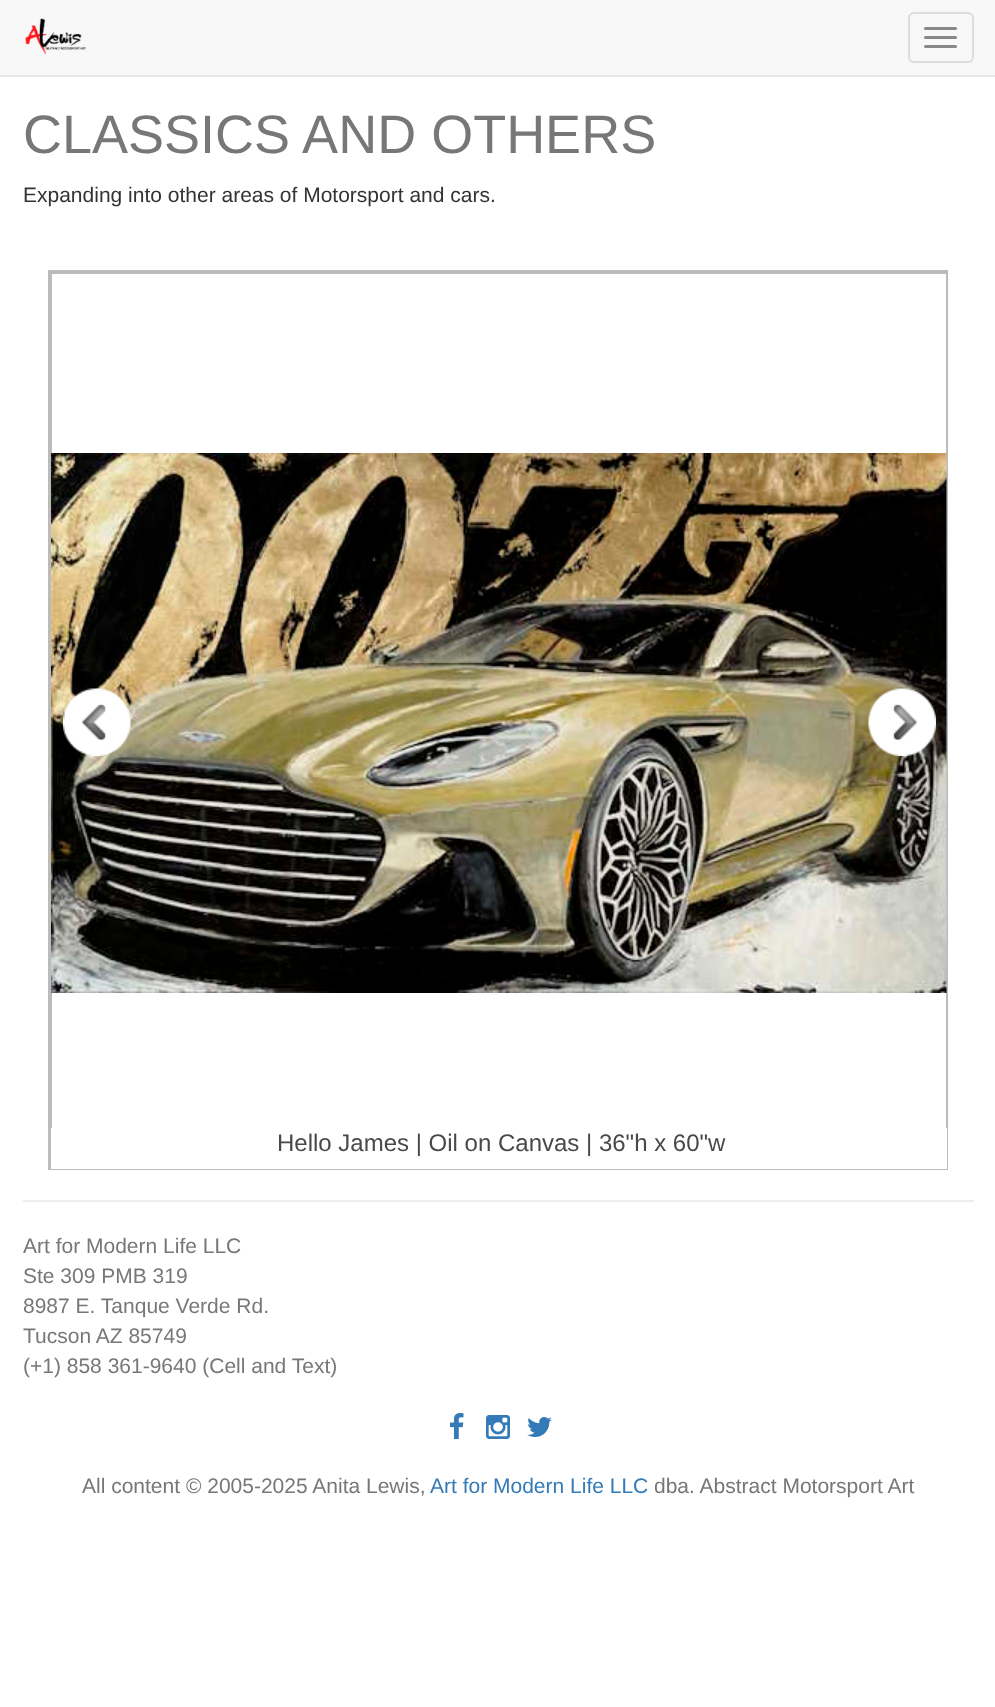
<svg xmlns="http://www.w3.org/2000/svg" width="995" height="1707">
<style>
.a{font:54px Liberation Sans;fill:#777}
.b{font:21px Liberation Sans;fill:#333}
.c{font:24px Liberation Sans;fill:#494949}
.d{font:21px Liberation Sans;fill:#777}
.e{font:21px Liberation Sans;fill:#337ab7}
</style>
<defs>
<clipPath id="clip1"><path d="M50 272h897v897H50z"/></clipPath>
</defs>
<rect width="100%" height="100%" fill="#fff"/>
<path fill="#f8f8f8" d="M0 0h995v75H0z"/>
<path fill="#e7e7e7" d="M0 75h995v2H0z"/>
<image href="1.png" x="25" y="18" width="61" height="37"/>
<rect fill="none" stroke="#ddd" stroke-width="2" x="909" y="13" width="64" height="49" rx="5"/>
<rect fill="#888" x="924" y="27" width="33" height="3" rx="1.5"/>
<rect fill="#888" x="924" y="36" width="33" height="3" rx="1.5"/>
<rect fill="#888" x="924" y="45" width="33" height="3" rx="1.5"/>
<path fill="none" stroke="#bbb" stroke-width="2" d="M49 271h898v898H49z"/>
<g clip-path="url(#clip1)">
<path fill="none" stroke="#bbb" stroke-width="2" d="M51 273h898v898H51z"/>
</g>
<image href="4.png" x="51" y="453" width="896" height="540"/>
<image href="2.png" x="63" y="688" width="68" height="68"/>
<image href="3.png" x="868" y="688" width="68" height="68"/>
<path fill="#fff" d="M51 1128h896v41H51z"/>
<path fill="#eee" d="M23 1200h951v2H23z"/>
<image href="5.png" x="450" y="1413" width="14" height="26"/>
<image href="6.png" x="486" y="1415" width="24" height="24"/>
<image href="7.png" x="527" y="1417" width="25" height="20"/>
<text class="a" x="23" y="153">CLASSICS AND OTHERS</text>
<text class="b" x="23" y="202">Expanding into other areas of Motorsport and cars.</text>
<text class="c" x="277" y="1151">Hello James | Oil on Canvas | 36"h x 60"w</text>
<text class="d" x="23" y="1253">Art for Modern Life LLC</text>
<text class="d" x="23" y="1283">Ste 309 PMB 319</text>
<text class="d" x="23" y="1313">8987 E. Tanque Verde Rd.</text>
<text class="d" x="23" y="1343">Tucson AZ 85749</text>
<text class="d" x="23" y="1373">(+1) 858 361-9640 (Cell and Text)</text>
<text class="d" x="82" y="1493">All content © 2005-2025 Anita Lewis,</text>
<text class="e" x="430" y="1493">Art for Modern Life LLC</text>
<text class="d" x="654" y="1493">dba. Abstract Motorsport Art</text>
</svg>
